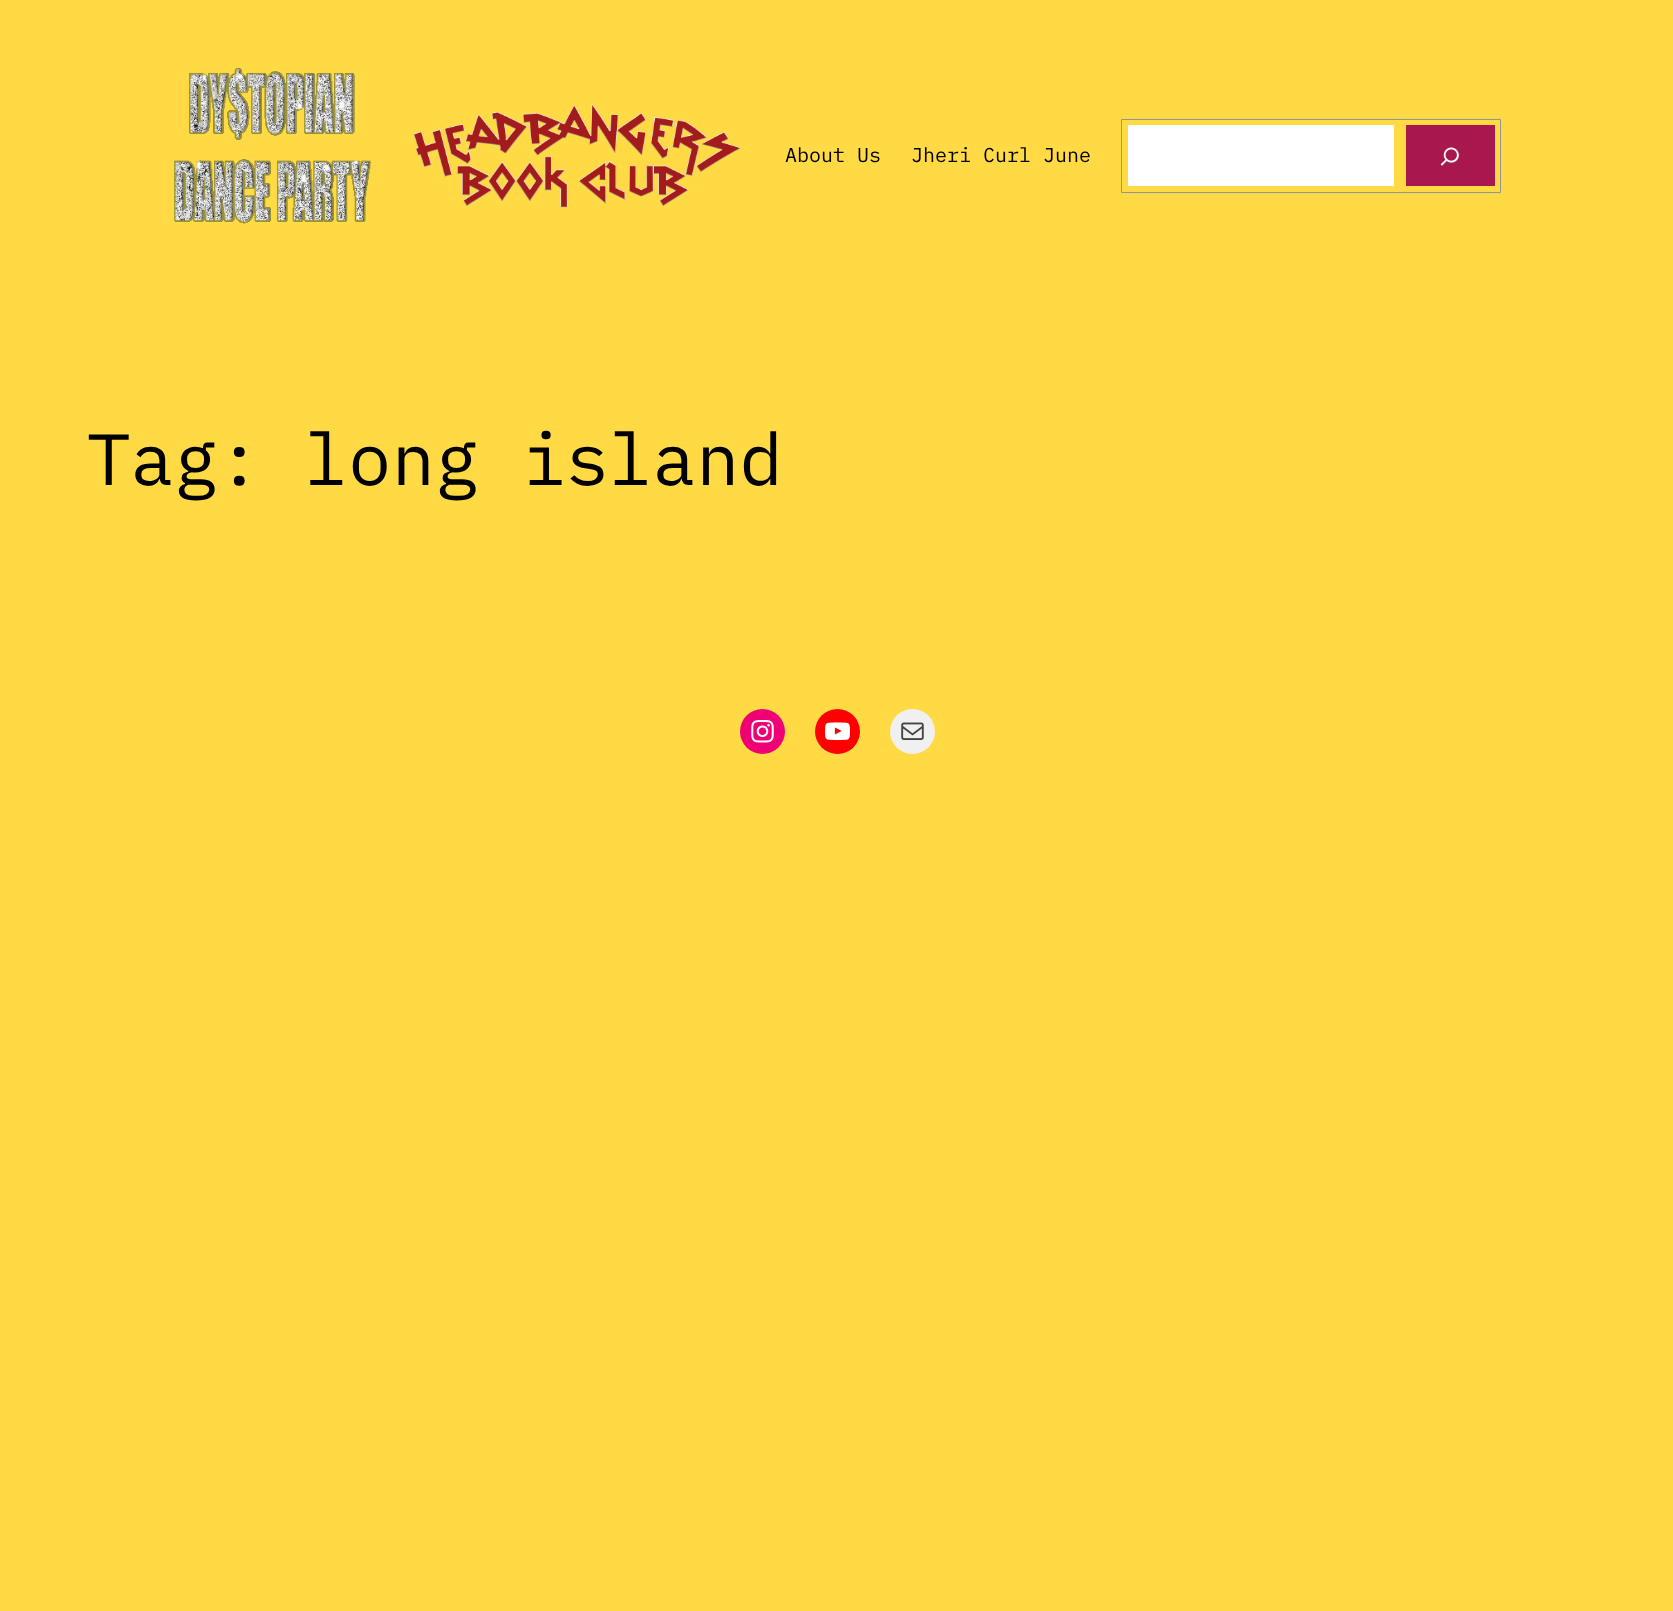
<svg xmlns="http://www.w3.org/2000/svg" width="1673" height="1611">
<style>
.a{font:20px IBM Plex Mono;fill:#000}
.b{font:72.5px IBM Plex Mono;fill:#000}
</style>
<rect width="100%" height="100%" fill="#ffda44"/>
<image href="1.png" x="174" y="67" width="198" height="157"/>
<image href="2.png" x="413" y="104" width="328" height="104"/>
<path fill="none" stroke="#949494" d="M1121.5 119.5h379v73H1121.5z"/>
<path fill="#fff" d="M1128 125h266v61H1128z"/>
<path fill="#a8184e" d="M1406 125h89v61H1406z"/>
<image href="3.png" x="1440" y="147" width="19" height="19"/>
<circle fill="#f00075" cx="762.5" cy="731.5" r="22.5"/>
<image href="4.png" x="751" y="720" width="23" height="23"/>
<circle fill="#f00" cx="837.5" cy="731.5" r="22.5"/>
<image href="5.png" x="825" y="722" width="25" height="19"/>
<circle fill="#f0f0f0" cx="912.5" cy="731.5" r="22.5"/>
<image href="6.png" x="901" y="722" width="23" height="18"/>
<text class="a" x="785" y="162">About Us</text>
<text class="a" x="911" y="162">Jheri Curl June</text>
<text class="b" x="87" y="485">Tag: long island</text>
</svg>
